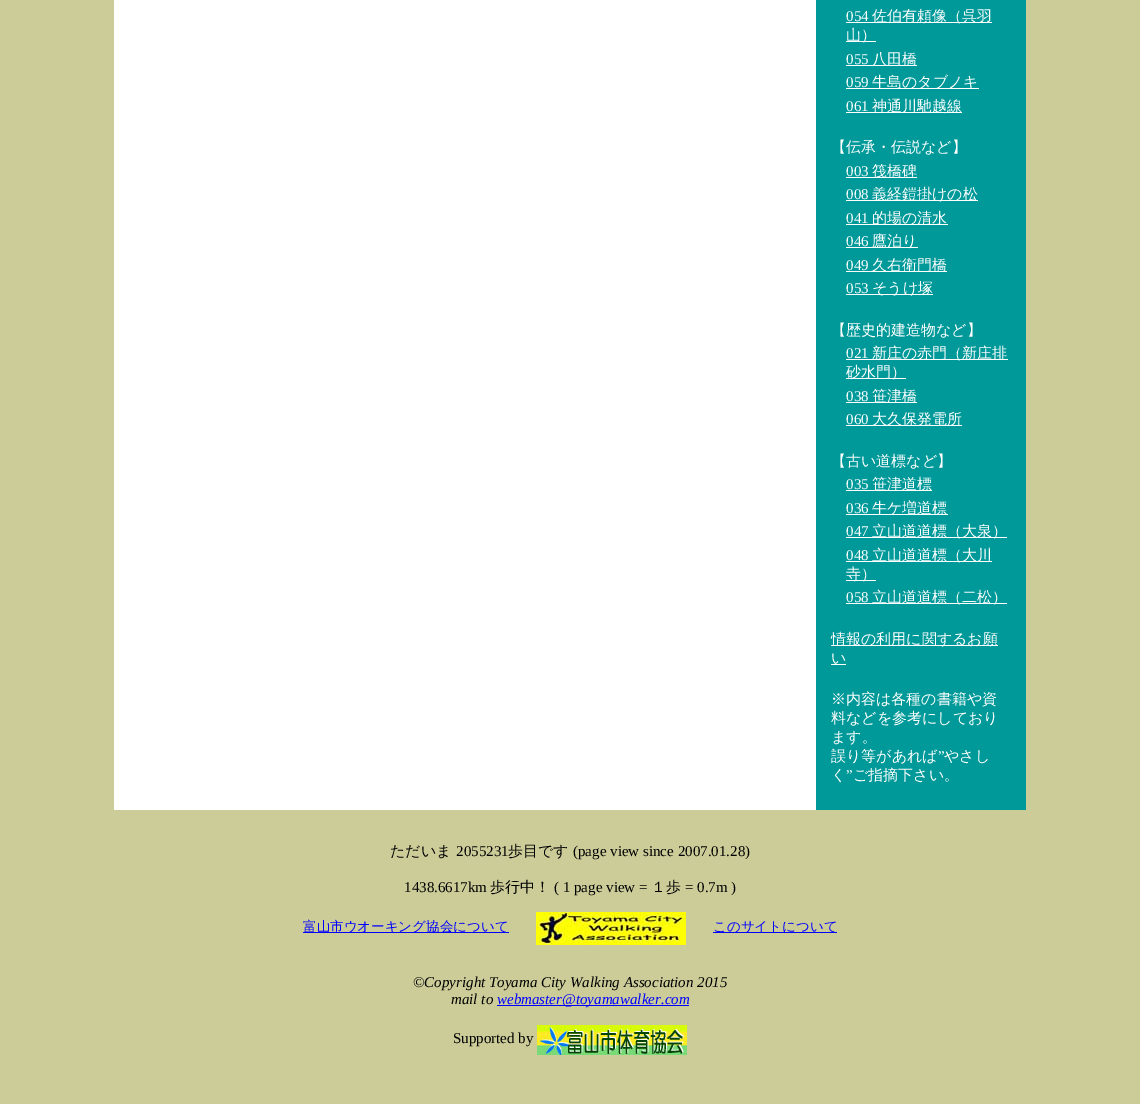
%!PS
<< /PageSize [1140 1104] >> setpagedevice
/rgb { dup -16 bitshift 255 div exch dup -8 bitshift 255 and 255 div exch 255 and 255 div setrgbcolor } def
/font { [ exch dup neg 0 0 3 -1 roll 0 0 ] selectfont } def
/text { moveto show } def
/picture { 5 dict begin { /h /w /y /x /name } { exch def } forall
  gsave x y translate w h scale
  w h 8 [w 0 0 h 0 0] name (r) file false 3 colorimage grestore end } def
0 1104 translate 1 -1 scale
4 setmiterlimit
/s1 { /LiberationSerif-Regular 15 font 16#FFFFFF rgb } def
/s2 { /WenQuanYiZenHei-Medium 15 font 16#FFFFFF rgb } def
/s3 { /WenQuanYiZenHei-Medium 15 font 16#000000 rgb } def
/s4 { /LiberationSerif-Regular 15 font 16#000000 rgb } def
/s5 { /WenQuanYiZenHei-Medium 13.5 font 16#0000FF rgb } def
/s6 { /LiberationSerif-Italic 15 font 16#000000 rgb } def
/s7 { /LiberationSerif-Italic 15 font 16#0000FF rgb } def
16#CCCC99 rgb
0 0 1140 1104 rectfill
16#FFFFFF rgb
114 0 702 810 rectfill
16#009999 rgb
816 0 210 810 rectfill
s1
(054) 846 21 text
846 22 146 1 rectfill
s2
(佐伯有頼像（呉羽) 872 21 text
846 41 30 1 rectfill
(山）) 846 40 text
s1
(055) 846 64 text
846 65 71 1 rectfill
s2
(八田橋) 872 64 text
s1
(059) 846 87 text
846 88 133 1 rectfill
s2
(牛島のタブノキ) 872 87 text
s1
(061) 846 111 text
846 112 116 1 rectfill
s2
(神通川馳越線) 872 111 text
(【伝承・伝説など】) 831 152 text
s1
(003) 846 176 text
846 177 71 1 rectfill
s2
(筏橋碑) 872 176 text
s1
(008) 846 199 text
846 200 132 1 rectfill
s2
(義経鎧掛けの松) 872 199 text
s1
(041) 846 223 text
846 224 102 1 rectfill
s2
(的場の清水) 872 223 text
s1
(046) 846 246 text
846 247 72 1 rectfill
s2
(鷹泊り) 872 246 text
s1
(049) 846 270 text
846 271 101 1 rectfill
s2
(久右衛門橋) 872 270 text
s1
(053) 846 293 text
846 294 87 1 rectfill
s2
(そうけ塚) 872 293 text
(【歴史的建造物など】) 831 335 text
s1
(021) 846 358 text
846 359 162 1 rectfill
s2
(新庄の赤門（新庄排) 872 358 text
846 378 60 1 rectfill
(砂水門）) 846 377 text
s1
(038) 846 401 text
846 402 71 1 rectfill
s2
(笹津橋) 872 401 text
s1
(060) 846 424 text
846 425 116 1 rectfill
s2
(大久保発電所) 872 424 text
(【古い道標など】) 831 466 text
s1
(035) 846 489 text
846 490 86 1 rectfill
s2
(笹津道標) 872 489 text
s1
(036) 846 513 text
846 514 102 1 rectfill
s2
(牛ケ増道標) 872 513 text
s1
(047) 846 536 text
846 537 161 1 rectfill
s2
(立山道道標（大泉）) 872 536 text
s1
(048) 846 560 text
846 561 146 1 rectfill
s2
(立山道道標（大川) 872 560 text
846 580 30 1 rectfill
(寺）) 846 579 text
s1
(058) 846 602 text
846 603 161 1 rectfill
s2
(立山道道標（二松）) 872 602 text
831 645 167 1 rectfill
(情報の利用に関するお願) 831 644 text
(い) 831 663 text
831 664 15 1 rectfill
(※内容は各種の書籍や資) 831 704 text
(料などを参考にしており) 831 723 text
(ます。) 831 742 text
(誤り等があれば) 831 761 text
s1
(”) 938 761 text
s2
(やさし) 944 761 text
(く) 831 780 text
s1
(”) 846 780 text
s2
(ご指摘下さい。) 853 780 text
s3
(ただいま) 390 856 text
s4
(2055231) 456 856 text
s3
(歩目です) 508 856 text
s4
(\(page view since 2007.01.28\)) 573 856 text
(1438.6617km) 404 892 text
s3
(歩行中！) 490 892 text
s4
(\( 1 page view =) 554 892 text
s3
(１歩) 651 892 text
s4
(= 0.7m \)) 685 892 text
16#0000FF rgb
303 932 206 1 rectfill
s5
(富山市ウオーキング協会について) 303 931 text
(pic1.raw) 536 912 150 33 picture
713 932 124 1 rectfill
(このサイトについて) 713 931 text
s6
(©Copyright Toyama City Walking Association 2015) 413 987 text
(mail to) 451 1004 text
16#0000FF rgb
497 1005 192 1 rectfill
(webmaster@toyamawalker.com) 497 1004 text
s4
(Supported by) 453 1043 text
(pic2.raw) 537 1025 150 30 picture
showpage
